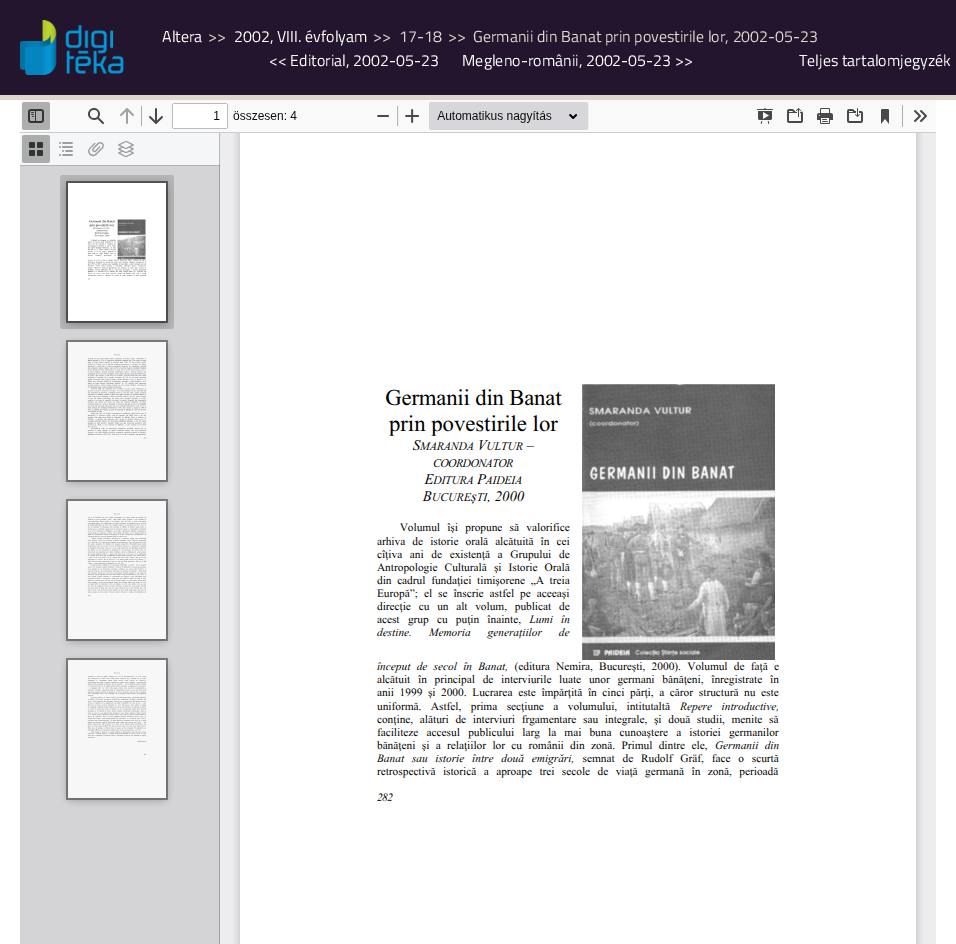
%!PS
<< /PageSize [956 944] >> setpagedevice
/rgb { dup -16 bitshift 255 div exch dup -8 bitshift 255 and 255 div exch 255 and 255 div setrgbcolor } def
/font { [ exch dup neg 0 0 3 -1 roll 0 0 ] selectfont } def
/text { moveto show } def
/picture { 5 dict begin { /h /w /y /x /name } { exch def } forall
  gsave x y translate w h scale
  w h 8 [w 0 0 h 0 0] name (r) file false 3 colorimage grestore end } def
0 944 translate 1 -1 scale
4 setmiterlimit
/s1 { /TitilliumWeb-Regular 16 font 16#FFFFFF rgb } def
/s2 { /TitilliumWeb-Regular 16 font 16#DBD7CB rgb } def
16#FFFFFF rgb
0 0 956 944 rectfill
16#23152E rgb
0 0 956 95 rectfill
16#DBD7CB rgb
0 95 956 5 rectfill
(pic1.raw) 20 20 104 55 picture
s1
(Altera) 162 42 text
s2
(>>) 208 42 text
s1
(2002, VIII. évfolyam) 234 42 text
s2
(>>) 373 42 text
(17-18) 399 42 text
(>>) 448 42 text
(Germanii din Banat prin povestirile lor, 2002-05-23) 473 42 text
s1
(<< Editorial, 2002-05-23) 269 66 text
(Megleno-românii, 2002-05-23 >>) 462 66 text
(Teljes tartalomjegyzék) 799 66 text
(pic2.raw) 20 100 916 844 picture
showpage
